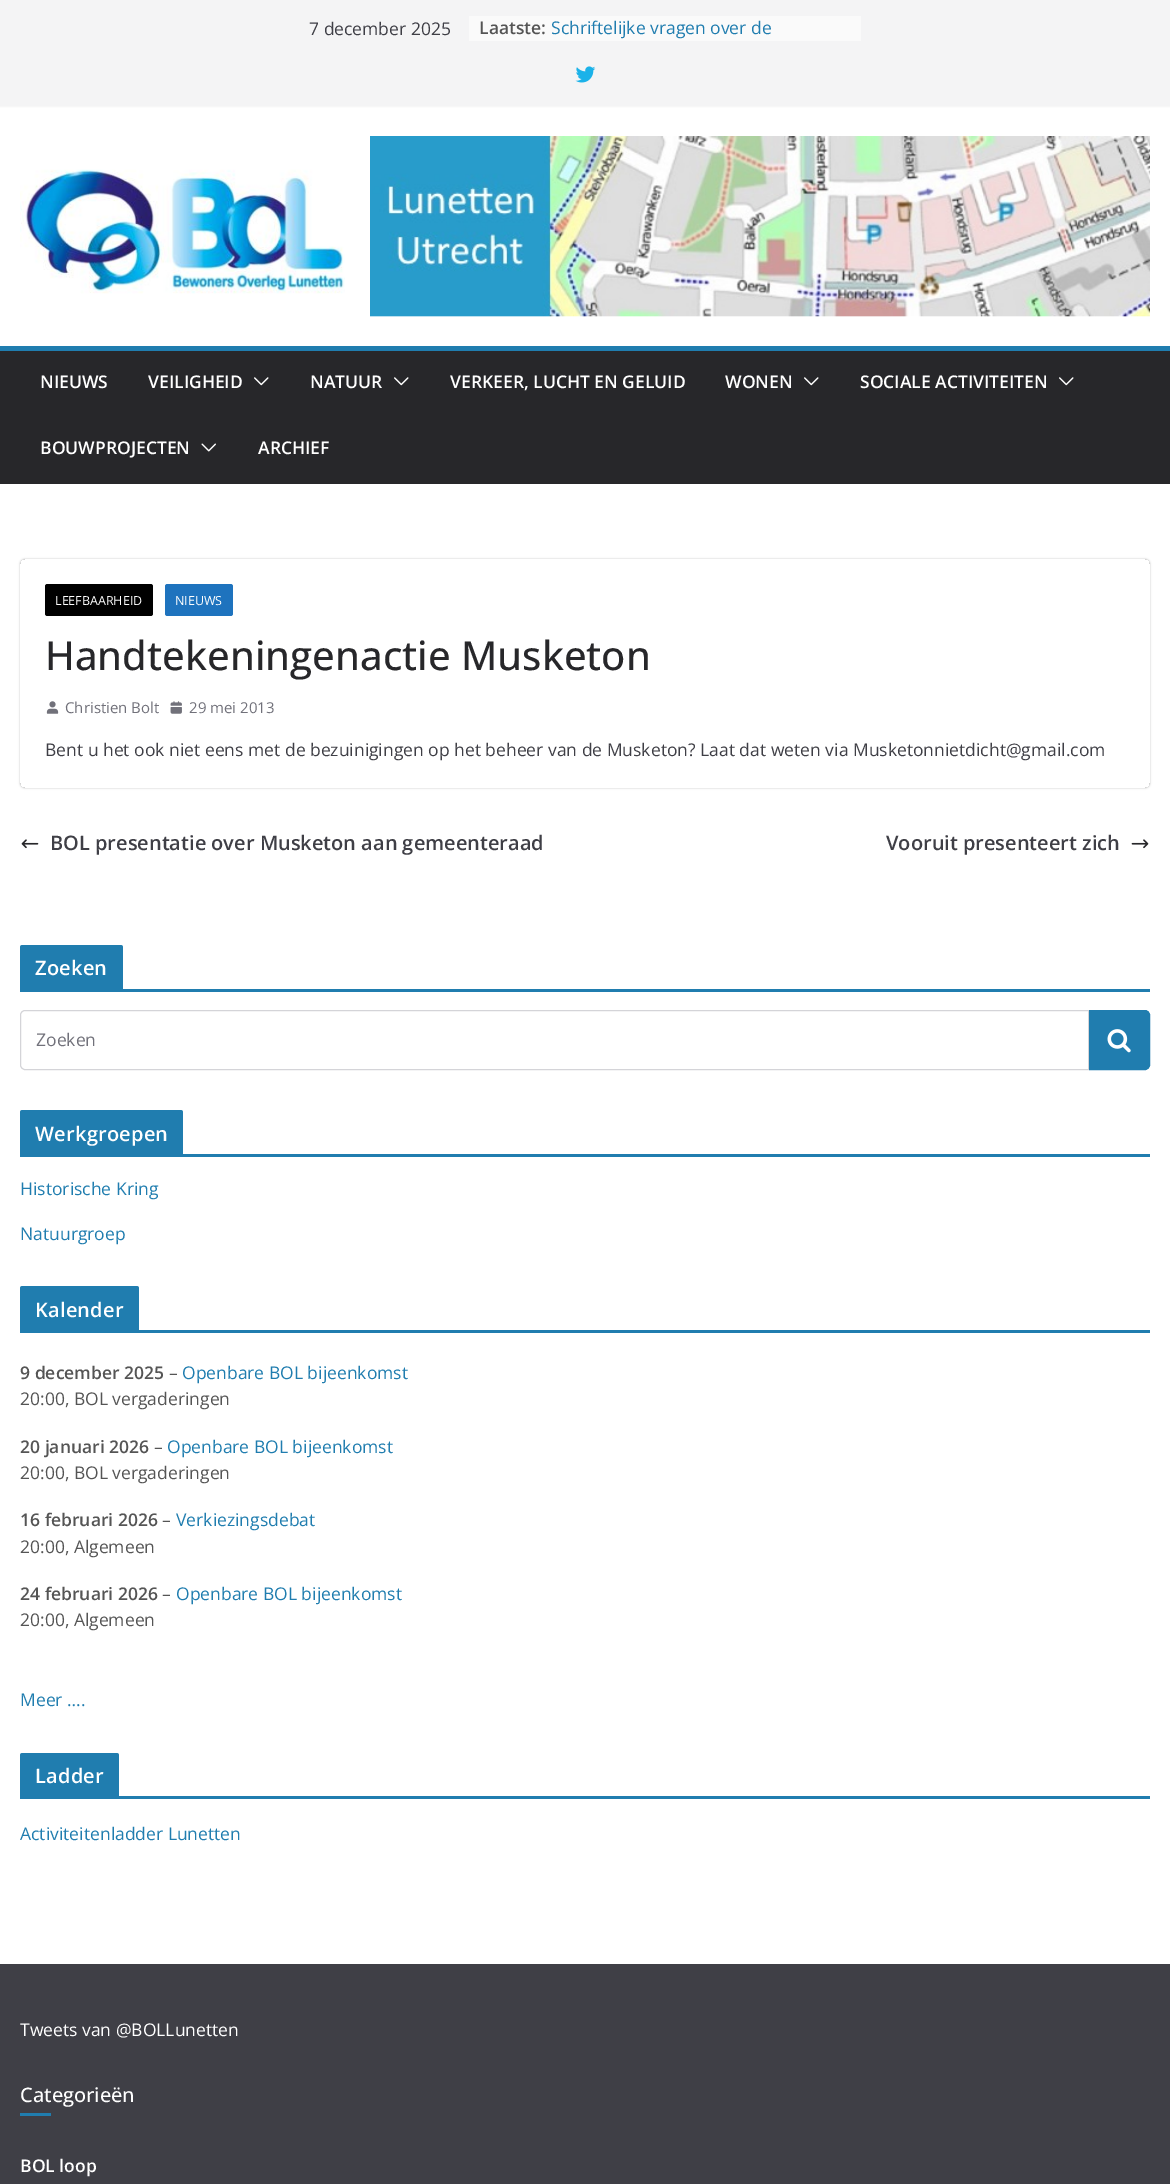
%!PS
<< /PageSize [1170 2184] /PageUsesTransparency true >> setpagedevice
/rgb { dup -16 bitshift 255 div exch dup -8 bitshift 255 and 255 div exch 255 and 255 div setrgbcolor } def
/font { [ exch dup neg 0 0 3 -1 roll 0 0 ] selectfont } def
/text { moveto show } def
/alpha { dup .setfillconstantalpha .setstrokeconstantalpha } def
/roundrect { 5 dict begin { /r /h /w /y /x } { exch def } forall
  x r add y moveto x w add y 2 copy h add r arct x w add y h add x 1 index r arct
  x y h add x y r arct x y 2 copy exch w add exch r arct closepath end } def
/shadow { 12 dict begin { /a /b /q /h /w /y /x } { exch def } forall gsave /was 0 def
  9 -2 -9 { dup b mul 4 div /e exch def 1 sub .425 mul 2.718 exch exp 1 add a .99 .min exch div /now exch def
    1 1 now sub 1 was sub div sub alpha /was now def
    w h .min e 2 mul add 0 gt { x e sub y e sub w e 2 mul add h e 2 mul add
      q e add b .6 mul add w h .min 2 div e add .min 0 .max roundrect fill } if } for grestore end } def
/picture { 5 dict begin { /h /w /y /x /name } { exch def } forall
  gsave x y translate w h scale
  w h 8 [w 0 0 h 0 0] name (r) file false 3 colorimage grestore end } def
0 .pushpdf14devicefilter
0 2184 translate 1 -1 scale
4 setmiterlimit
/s1 { /OpenSans-Regular 17.5 font 16#3F3F46 rgb } def
/s2 { /OpenSans-SemiBold 17.5 font 16#555555 rgb } def
/s3 { /OpenSans-Regular 17.5 font 16#207DAF rgb } def
/s4 { /OpenSans-SemiBold 17.5 font 16#FFFFFF rgb } def
/s5 { /OpenSans-Regular 12.5 font 16#FFFFFF rgb } def
/s6 { /OpenSans-Medium 40 font 16#27272A rgb } def
/s7 { /OpenSans-Regular 15 font 16#71717A rgb } def
/s8 { /OpenSans-SemiBold 20 font 16#3F3F46 rgb } def
/s9 { /OpenSans-Regular 17.5 font 16#71717A rgb } def
/s10 { /OpenSans-Regular 17.5 font 16#555555 rgb } def
/s11 { /OpenSans-Regular 17.5 font 16#FFFFFF rgb } def
/s12 { /OpenSans-Medium 20 font 16#FFFFFF rgb } def
16#FFFFFF rgb
0 0 1170 2184 rectfill
16#000000 rgb
0 0 1170 106 0 1 0.1 shadow
16#F4F4F5 rgb
0 0 1170 106 rectfill
s1
(7 december 2025) 309 35 text
16#FAFAFA rgb
469 16 392 25 rectfill
s2
(Laatste:) 479 34 text
s3
(Schriftelijke vragen over de) 551 34 text
(pic1.raw) 575 66 21 17 picture
(pic2.raw) 20 169 325 125 picture
(pic3.raw) 370 136 780 181 picture
16#27272A rgb
0 351 1170 133 rectfill
16#207DAF rgb
0 346 1170 5 rectfill
s4
(NIEUWS) 40 388 text
(VEILIGHEID) 148 388 text
(pic4.raw) 254 377 15 9 picture
(NATUUR) 310 388 text
(pic4.raw) 394 377 15 9 picture
(VERKEER, LUCHT EN GELUID) 450 388 text
(WONEN) 725 388 text
(pic4.raw) 804 377 15 9 picture
(SOCIALE ACTIVITEITEN) 860 388 text
(pic4.raw) 1059 377 15 9 picture
(BOUWPROJECTEN) 40 454 text
(pic5.raw) 201 443 15 9 picture
(ARCHIEF) 258 454 text
gsave
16 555 moveto 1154 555 lineto 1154 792 lineto 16 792 lineto closepath 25 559 moveto 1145 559 lineto 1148 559 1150 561 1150 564 curveto 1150 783 lineto 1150 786 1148 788 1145 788 curveto 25 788 lineto 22 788 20 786 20 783 curveto 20 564 lineto 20 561 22 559 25 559 curveto closepath eoclip newpath
16#000000 rgb
20 559 1130 229 5 1 0.24 shadow
grestore
16#000000 rgb
45 584 108 32 2.5 roundrect fill
s5
(LEEFBAARHEID) 55 605 text
16#1E73BE rgb
165 584 68 32 2.5 roundrect fill
s5
(NIEUWS) 175 605 text
s6
(Handtekeningenactie Musketon) 45 670 text
(pic6.raw) 46 701 13 13 picture
s7
(Christien Bolt) 65 713 text
(pic7.raw) 170 701 12 13 picture
(29 mei 2013) 189 713 text
s1
(Bent u het ook niet eens met de bezuinigingen op het beheer van de Musketon? Laat dat weten via Musketonnietdicht@gmail.com) 45 756 text
(pic8.raw) 21 839 18 10 picture
s8
(BOL presentatie over Musketon aan gemeenteraad) 50 850 text
(Vooruit presenteert zich) 886 850 text
(pic9.raw) 1131 839 18 10 picture
16#207DAF rgb
20 989 1130 3 rectfill
22.5 945 moveto 120.5 945 lineto 122 945 123 946 123 947.5 curveto 123 989 lineto 20 989 lineto 20 947.5 lineto 20 946 21 945 22.5 945 curveto closepath fill
16#FFFFFF rgb
35 975 moveto 0.25 0 (Zoeken) ashow
16#D4D4D8 rgb
25 1010.5 moveto 1088.5 1010.5 lineto 1088.5 1069.5 lineto 25 1069.5 lineto 22.5 1069.5 20.5 1067.5 20.5 1065 curveto 20.5 1015 lineto 20.5 1012.5 22.5 1010.5 25 1010.5 curveto closepath stroke
s9
(Zoeken) 36 1046 text
16#207DAF rgb
1089.5 1010.5 moveto 1145 1010.5 lineto 1147.5 1010.5 1149.5 1012.5 1149.5 1015 curveto 1149.5 1065 lineto 1149.5 1067.5 1147.5 1069.5 1145 1069.5 curveto 1089.5 1069.5 lineto closepath gsave fill grestore
stroke
(pic10.raw) 1107 1029 24 24 picture
20 1154 1130 3 rectfill
22.5 1110 moveto 180.5 1110 lineto 182 1110 183 1111 183 1112.5 curveto 183 1154 lineto 20 1154 lineto 20 1112.5 lineto 20 1111 21 1110 22.5 1110 curveto closepath fill
/OpenSans-SemiBold 20 font
16#FFFFFF rgb
35 1141 moveto 0.25 0 (Werkgroepen) ashow
s3
(Historische Kring) 20 1195 text
(Natuurgroep) 20 1240 text
20 1330 1130 3 rectfill
22.5 1286 moveto 136.5 1286 lineto 138 1286 139 1287 139 1288.5 curveto 139 1330 lineto 20 1330 lineto 20 1288.5 lineto 20 1287 21 1286 22.5 1286 curveto closepath fill
/OpenSans-SemiBold 20 font
16#FFFFFF rgb
35 1317 moveto 0.25 0 (Kalender) ashow
s2
(9 december 2025) 20 1379 text
s10
(–) 169 1379 text
s3
(Openbare BOL bijeenkomst) 182 1379 text
s10
(20:00, BOL vergaderingen) 20 1405 text
s2
(20 januari 2026) 20 1453 text
s10
(–) 154 1453 text
s3
(Openbare BOL bijeenkomst) 167 1453 text
s10
(20:00, BOL vergaderingen) 20 1479 text
s2
(16 februari 2026) 20 1526 text
s10
(–) 162 1526 text
s3
(Verkiezingsdebat) 176 1526 text
s10
(20:00, Algemeen) 20 1553 text
s2
(24 februari 2026) 20 1600 text
s10
(–) 162 1600 text
s3
(Openbare BOL bijeenkomst) 176 1600 text
s10
(20:00, Algemeen) 20 1626 text
s3
(Meer ….) 20 1706 text
20 1796 1130 3 rectfill
22.5 1753 moveto 116.5 1753 lineto 118 1753 119 1754 119 1755.5 curveto 119 1796 lineto 20 1796 lineto 20 1755.5 lineto 20 1754 21 1753 22.5 1753 curveto closepath fill
/OpenSans-SemiBold 20 font
16#FFFFFF rgb
35 1783 moveto 0.25 0 (Ladder) ashow
s3
(Activiteitenladder Lunetten) 20 1840 text
16#3F3F46 rgb
0 1964 1170 220 rectfill
s11
(Tweets van @BOLLunetten) 20 2036 text
s12
(Categorieën) 20 2102 text
16#207DAF rgb
20 2113 31 3 rectfill
s4
(BOL loop) 20 2172 text
.poppdf14devicefilter showpage
